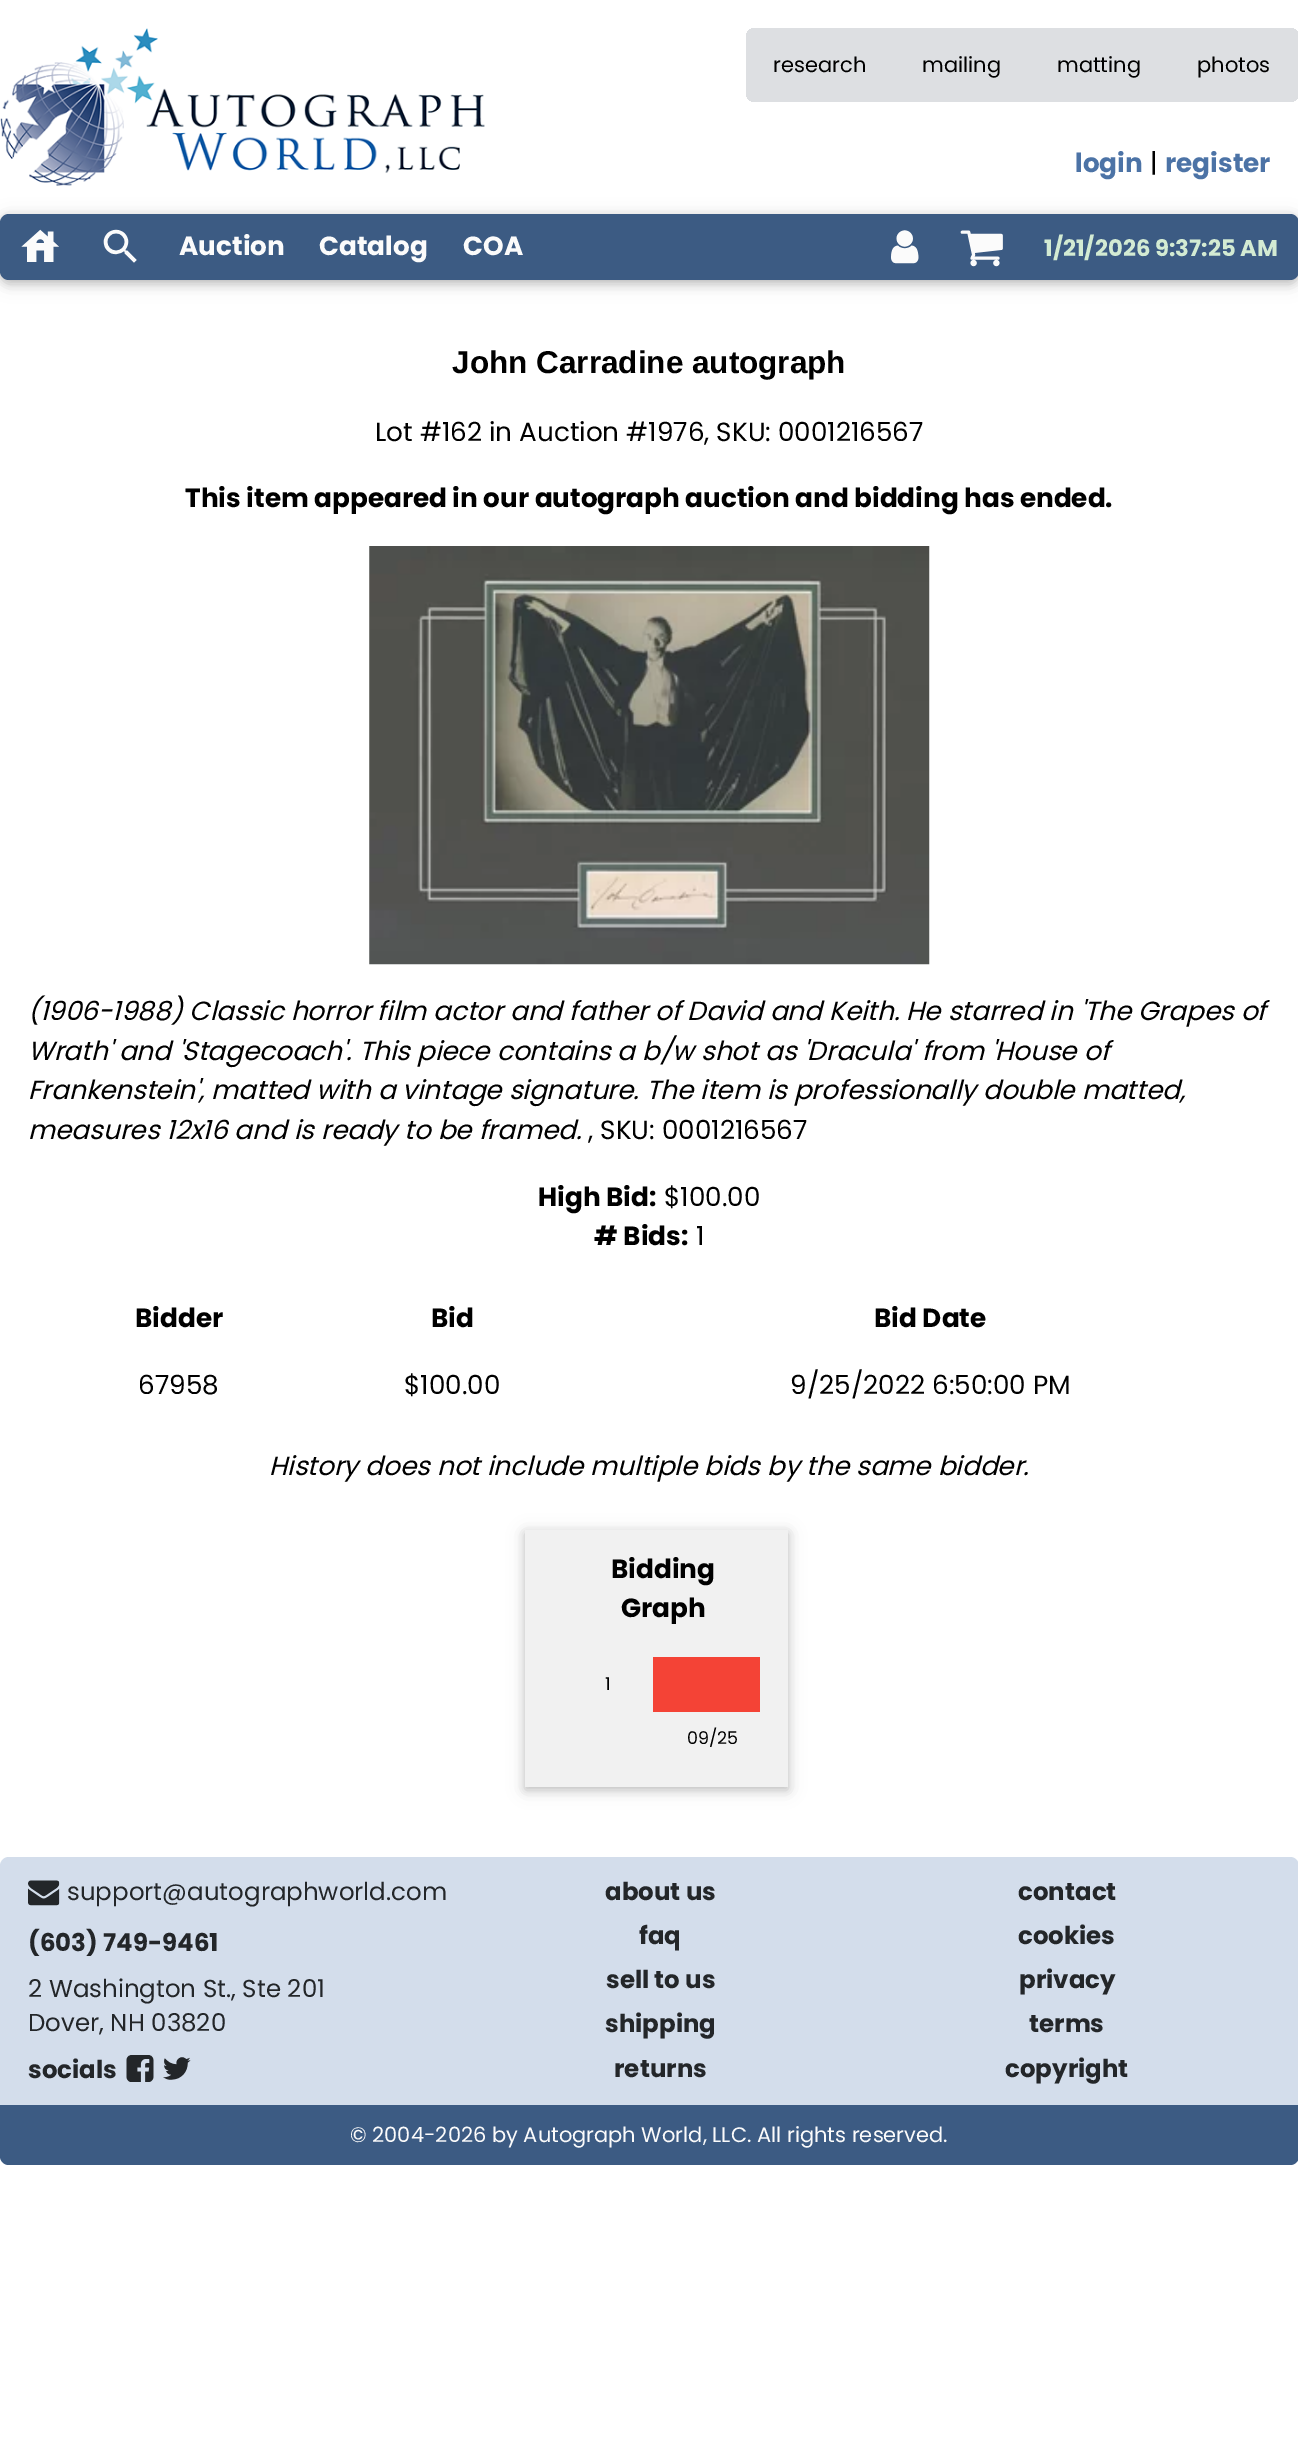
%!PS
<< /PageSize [1298 2464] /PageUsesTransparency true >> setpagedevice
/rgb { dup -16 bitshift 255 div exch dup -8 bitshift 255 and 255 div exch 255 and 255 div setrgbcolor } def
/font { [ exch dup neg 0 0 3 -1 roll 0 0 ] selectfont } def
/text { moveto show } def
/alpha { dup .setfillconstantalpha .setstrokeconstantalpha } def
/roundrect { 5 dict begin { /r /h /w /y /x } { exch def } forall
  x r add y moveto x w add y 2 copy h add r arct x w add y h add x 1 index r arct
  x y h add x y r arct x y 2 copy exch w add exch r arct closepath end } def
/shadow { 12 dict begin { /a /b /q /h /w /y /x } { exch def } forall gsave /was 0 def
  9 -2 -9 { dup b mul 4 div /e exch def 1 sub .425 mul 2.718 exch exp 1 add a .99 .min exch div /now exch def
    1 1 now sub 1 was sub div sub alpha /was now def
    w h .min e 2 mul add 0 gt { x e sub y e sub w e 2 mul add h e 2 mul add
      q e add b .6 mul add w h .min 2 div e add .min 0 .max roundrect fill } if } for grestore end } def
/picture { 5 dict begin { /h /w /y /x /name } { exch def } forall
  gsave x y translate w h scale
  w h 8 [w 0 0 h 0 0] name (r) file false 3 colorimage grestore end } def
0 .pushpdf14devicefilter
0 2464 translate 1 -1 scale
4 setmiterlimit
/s1 { /Poppins-Regular 21 font 16#000000 rgb } def
/s2 { /Poppins-Bold 26.25 font 16#4C73A6 rgb } def
/s3 { /Poppins-Regular 26.25 font 16#000000 rgb } def
/s4 { /Poppins-Bold 26.25 font 16#FBFBFB rgb } def
/s5 { /Poppins-Bold 22.75 font 16#D3EBD3 rgb } def
/s6 { /LiberationSans-Bold 31.5 font 16#000000 rgb } def
/s7 { /Poppins-Bold 26.25 font 16#000000 rgb } def
/s8 { /Poppins-Italic 26.25 font 16#000000 rgb } def
/s9 { /Poppins-Regular 17.5 font 16#000000 rgb } def
/s10 { /Poppins-Regular 24.5 font 16#232629 rgb } def
/s11 { /Poppins-Bold 24.5 font 16#232629 rgb } def
/s12 { /Poppins-Regular 21 font 16#FBFBFB rgb } def
16#FFFFFF rgb
0 0 1298 2464 rectfill
(pic1.raw) 0 28 485 158 picture
16#DDDFE2 rgb
755 28 moveto 894 28 lineto 894 102 lineto 755 102 lineto 750 102 746 98 746 93 curveto 746 37 lineto 746 32 750 28 755 28 curveto closepath fill
gsave
746 28 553 74 9 roundrect clip newpath
746 28 148 7 rectfill
746 95 148 7 rectfill
grestore
s1
(research) 773 72 text
16#DDDFE2 rgb
894 28 275 74 rectfill
s1
(mailing) 922 72 text
(matting) 1057 72 text
16#DDDFE2 rgb
1169 28 moveto 1290 28 lineto 1295 28 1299 32 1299 37 curveto 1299 93 lineto 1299 98 1295 102 1290 102 curveto 1169 102 lineto closepath fill
gsave
746 28 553 74 9 roundrect clip newpath
1169 28 129 7 rectfill
1169 95 129 7 rectfill
grestore
s1
(photos) 1197 72 text
s2
(login) 1075 172 text
s3
(|) 1150 172 text
s2
(register) 1165 172 text
16#000000 rgb
0 217 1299 67 9 9 0.12 shadow
0 217 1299 67 9 4.5 0.16 shadow
16#3C5B83 rgb
0 214 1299 66 9 roundrect fill
(pic2.raw) 21 229 38 33 picture
(pic3.raw) 103 229 34 34 picture
s4
(Auction) 179 255 text
(Catalog) 319 255 text
(COA) 463 255 text
(pic4.raw) 891 230 28 34 picture
(pic5.raw) 960 230 43 37 picture
s5
(1/21/2026 9:37:25 AM) 1044 256 text
s6
(John Carradine autograph) 452 373 text
s3
(Lot #162 in Auction #1976, SKU: 0001216567) 375 441 text
s7
(This item appeared in our autograph auction and bidding has ended.) 185 507 text
(pic6.raw) 369 546 561 419 picture
s8
(\(1906-1988\) Classic horror film actor and father of David and Keith. He starred in 'The Grapes of) 28 1020 text
(Wrath' and 'Stagecoach'. This piece contains a b/w shot as 'Dracula' from 'House of) 28 1060 text
(Frankenstein', matted with a vintage signature. The item is professionally double matted,) 28 1099 text
(measures 12x16 and is ready to be framed.) 28 1139 text
s3
(, SKU: 0001216567) 588 1139 text
s7
(High Bid:) 538 1206 text
s3
($100.00) 664 1206 text
s7
(# Bids:) 594 1245 text
s3
(1) 696 1245 text
s7
(Bidder) 135 1327 text
(Bid) 431 1327 text
(Bid Date) 874 1327 text
s3
(67958) 138 1394 text
($100.00) 404 1394 text
(9/25/2022 6:50:00 PM) 790 1394 text
s8
(History does not include multiple bids by the same bidder.) 269 1475 text
525 1533 263 257 0 9 0.12 shadow
525 1533 263 257 0 4.5 0.16 shadow
16#F1F1F1 rgb
525 1530 263 257 rectfill
s7
(Bidding) 611 1578 text
(Graph) 621 1617 text
s9
(1) 605 1690 text
16#F44336 rgb
653 1657 107 55 rectfill
s9
(09/25) 687 1744 text
16#D3DDEB rgb
0 1857 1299 308 9 roundrect fill
(pic7.raw) 28 1880 32 26 picture
s10
(support@autographworld.com) 67 1900 text
s11
(\(603\) 749-9461) 28 1951 text
s10
(2 Washington St., Ste 201) 28 1997 text
(Dover, NH 03820) 28 2031 text
s11
(socials) 28 2078 text
(pic8.raw) 126 2055 28 27 picture
(pic9.raw) 163 2057 28 23 picture
(about us) 605 1900 text
(faq) 639 1944 text
(sell to us) 606 1988 text
(shipping) 605 2032 text
(returns) 614 2077 text
(contact) 1018 1900 text
(cookies) 1018 1944 text
(privacy) 1019 1988 text
(terms) 1029 2032 text
(copyright) 1005 2077 text
16#3C5B83 rgb
0 2105 moveto 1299 2105 lineto 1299 2156 lineto 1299 2161 1295 2165 1290 2165 curveto 9 2165 lineto 4 2165 0 2161 0 2156 curveto closepath fill
s12
(© 2004-2026 by Autograph World, LLC. All rights reserved.) 350 2142 text
.poppdf14devicefilter showpage
